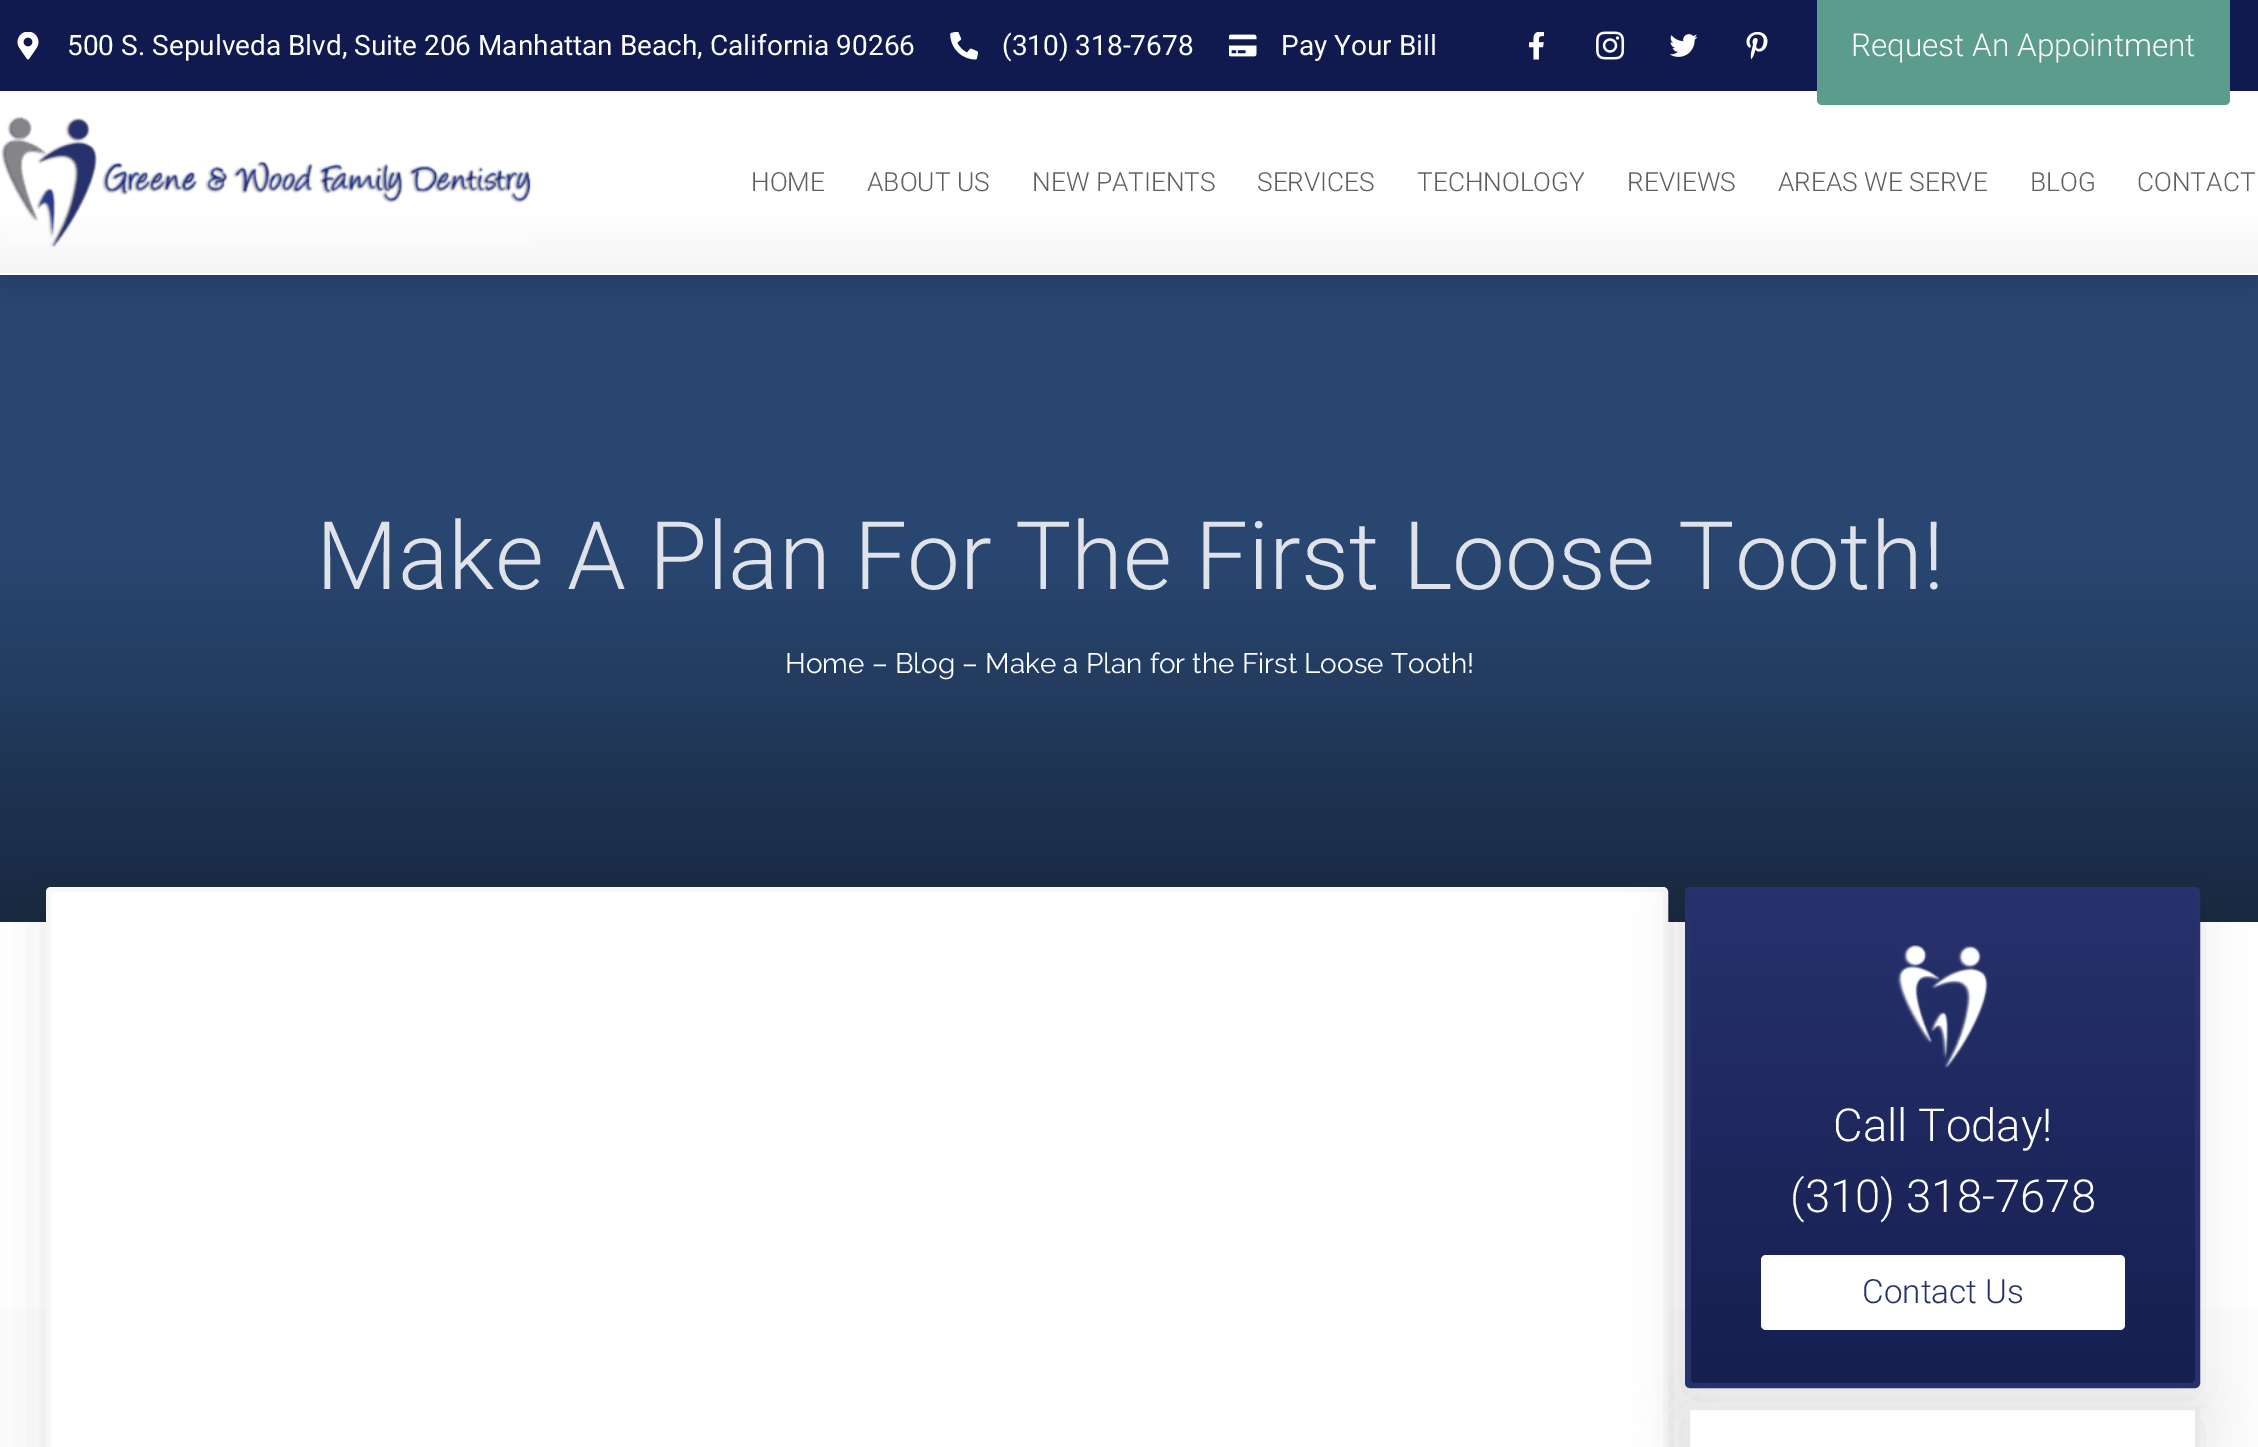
%!PS
<< /PageSize [2258 1447] /PageUsesTransparency true >> setpagedevice
/rgb { dup -16 bitshift 255 div exch dup -8 bitshift 255 and 255 div exch 255 and 255 div setrgbcolor } def
/font { [ exch dup neg 0 0 3 -1 roll 0 0 ] selectfont } def
/text { moveto show } def
/alpha { dup .setfillconstantalpha .setstrokeconstantalpha } def
/roundrect { 5 dict begin { /r /h /w /y /x } { exch def } forall
  x r add y moveto x w add y 2 copy h add r arct x w add y h add x 1 index r arct
  x y h add x y r arct x y 2 copy exch w add exch r arct closepath end } def
/shadow { 12 dict begin { /a /b /q /h /w /y /x } { exch def } forall gsave /was 0 def
  9 -2 -9 { dup b mul 4 div /e exch def 1 sub .425 mul 2.718 exch exp 1 add a .99 .min exch div /now exch def
    1 1 now sub 1 was sub div sub alpha /was now def
    w h .min e 2 mul add 0 gt { x e sub y e sub w e 2 mul add h e 2 mul add
      q e add b .6 mul add w h .min 2 div e add .min 0 .max roundrect fill } if } for grestore end } def
/picture { 5 dict begin { /h /w /y /x /name } { exch def } forall
  gsave x y translate w h scale
  w h 8 [w 0 0 h 0 0] name (r) file false 3 colorimage grestore end } def
0 .pushpdf14devicefilter
0 1447 translate 1 -1 scale
4 setmiterlimit
/s1 { /Roboto-Regular 28 font 16#FFFFFF rgb } def
/s2 { /Roboto-Light 31.5 font 16#FFFFFF rgb } def
/s3 { /Roboto-Light 26.25 font 16#5E5E5E rgb } def
/s4 { /Roboto-Light 94.5 font 16#DFE3E9 rgb } def
/s5 { /Raleway-Regular 28 font 16#FFFFFF rgb } def
/s6 { /Roboto-Light 45.5 font 16#FFFFFF rgb } def
/s7 { /Roboto-Light 33.25 font 16#27316C rgb } def
16#FFFFFF rgb
0 0 2258 1447 rectfill
gsave 0 275 moveto 2258 275 lineto 2258 922 lineto 0 922 lineto closepath clip newpath
<< /ShadingType 2 /ColorSpace /DeviceRGB /Coords [1130 275 1130 922] /Extend [true true] /Function << /FunctionType 3 /Domain [0 1] /Functions [<< /FunctionType 2 /Domain [0 1] /C0 [0.161 0.275 0.439] /C1 [0.161 0.275 0.439] /N 1 >> << /FunctionType 2 /Domain [0 1] /C0 [0.161 0.275 0.439] /C1 [0.094 0.157 0.251] /N 1 >>] /Bounds [0.44] /Encode [0 1 0 1] >> >> shfill grestore
16#000000 rgb
0 91 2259 184 0 19 0.18 shadow
16#111A4F rgb
0 0 2258 91 rectfill
(pic1.raw) 17 32 22 28 picture
s1
(500 S. Sepulveda Blvd, Suite 206 Manhattan Beach, California 90266) 67 55 text
(pic2.raw) 950 32 28 28 picture
(\(310\) 318-7678) 1002 55 text
(pic3.raw) 1229 34 28 23 picture
(Pay Your Bill) 1281 55 text
(pic4.raw) 1529 32 15 28 picture
(pic5.raw) 1596 31 29 29 picture
(pic6.raw) 1670 34 28 23 picture
(pic7.raw) 1746 32 22 28 picture
gsave 0 91 moveto 2258 91 lineto 2258 273 lineto 0 273 lineto closepath clip newpath
<< /ShadingType 2 /ColorSpace /DeviceRGB /Coords [1130 91 1130 273] /Extend [true true] /Function << /FunctionType 3 /Domain [0 1] /Functions [<< /FunctionType 2 /Domain [0 1] /C0 [1 1 1] /C1 [1 1 1] /N 1 >> << /FunctionType 2 /Domain [0 1] /C0 [1 1 1] /C1 [0.961 0.961 0.961] /N 1 >>] /Bounds [0.65] /Encode [0 1 0 1] >> >> shfill grestore
16#5C9C8C rgb
1817 -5 413 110 5 roundrect fill
s2
(Request An Appointment) 1851 56 text
0 273 2258 2 rectfill
(pic8.raw) 1 117 530 130 picture
s3
(HOME) 751 191 text
(ABOUT US) 867 191 text
(NEW PATIENTS) 1032 191 text
(SERVICES) 1257 191 text
(TECHNOLOGY) 1417 191 text
(REVIEWS) 1627 191 text
(AREAS WE SERVE) 1778 191 text
(BLOG) 2030 191 text
(CONTACT) 2137 191 text
s4
(Make A Plan For The First Loose Tooth!) 316 589 text
s5
(Home – Blog – Make a Plan for the First Loose Tooth!) 785 673 text
gsave 0 1309 moveto 2258 1309 lineto 2258 1447 lineto 0 1447 lineto closepath clip newpath
<< /ShadingType 2 /ColorSpace /DeviceRGB /Coords [1130 922 1130 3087] /Extend [true true] /Function << /FunctionType 2 /Domain [0 1] /C0 [1 1 1] /C1 [0.945 0.945 0.945] /N 1 >> >> shfill grestore
16#000000 rgb
46 896 1622 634 5 26 0.09 shadow
16#FFFFFF rgb
48.5 889.5 1617 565 2.5 roundrect gsave fill grestore
16#F7F7F7 rgb
5 setlinewidth
stroke
16#000000 rgb
1685 896 515 501 5 26 0.09 shadow
16#27316C rgb
1687.5 889.5 510 496 2.5 roundrect gsave fill grestore
stroke
gsave 1691 893 504 490 5 roundrect clip newpath
<< /ShadingType 2 /ColorSpace /DeviceRGB /Coords [1943 893 1943 1383] /Extend [true true] /Function << /FunctionType 2 /Domain [0 1] /C0 [0.153 0.192 0.424] /C1 [0.086 0.122 0.314] /N 1 >> >> shfill grestore
(pic9.raw) 1897 945 91 123 picture
s6
(Call Today!) 1833 1141 text
(\(310\) 318-7678) 1790 1212 text
1761 1255 364 75 5 roundrect fill
s7
(Contact Us) 1862 1303 text
16#000000 rgb
1685 1414 515 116 5 26 0.09 shadow
16#FFFFFF rgb
1687.5 1407.5 510 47 2.5 roundrect gsave fill grestore
16#E9E9E9 rgb
stroke
.poppdf14devicefilter showpage
